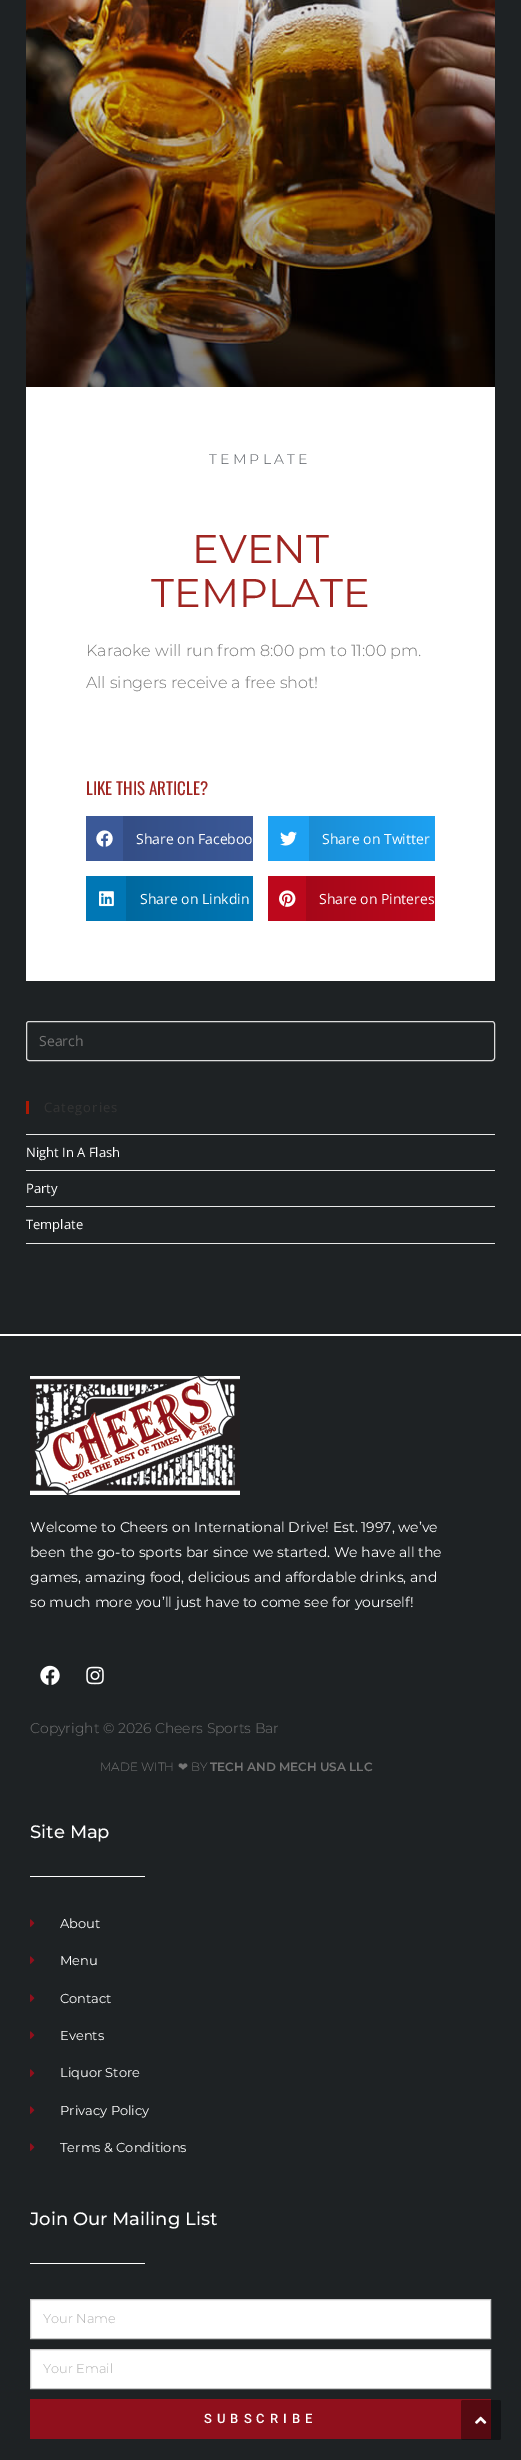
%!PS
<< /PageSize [521 2460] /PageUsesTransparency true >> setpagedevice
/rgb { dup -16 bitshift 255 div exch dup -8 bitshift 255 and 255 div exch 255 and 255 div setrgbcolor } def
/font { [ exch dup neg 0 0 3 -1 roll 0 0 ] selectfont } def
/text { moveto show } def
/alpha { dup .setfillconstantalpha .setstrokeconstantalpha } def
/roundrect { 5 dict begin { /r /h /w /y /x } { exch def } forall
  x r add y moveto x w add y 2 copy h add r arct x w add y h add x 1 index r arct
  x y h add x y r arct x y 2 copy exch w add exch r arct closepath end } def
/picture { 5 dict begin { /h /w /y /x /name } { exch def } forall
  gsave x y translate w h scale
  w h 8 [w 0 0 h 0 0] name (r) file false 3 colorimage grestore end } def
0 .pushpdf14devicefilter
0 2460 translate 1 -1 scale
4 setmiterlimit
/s1 { /Montserrat-Regular 40 font 16#A02521 rgb } def
/s2 { /Montserrat-Light 16 font 16#757575 rgb } def
/s3 { /Oswald-Regular 17 font 16#A02521 rgb } def
/s4 { /OpenSans-Regular 14 font 16#FFFFFF rgb } def
/s5 { /OpenSans-Regular 14 font 16#757575 rgb } def
/s6 { /OpenSans-Regular 13 font 16#FFFFFF rgb } def
/s7 { /Montserrat-Regular 14 font 16#FFFFFF rgb } def
/s8 { /Montserrat-Light 14 font 16#757575 rgb } def
/s9 { /Montserrat-Light 12 font 16#757575 rgb } def
/s10 { /DejaVuSans-Regular 12 font 16#757575 rgb } def
/s11 { /Montserrat-SemiBold 12 font 16#757575 rgb } def
/s12 { /Montserrat-Medium 18 font 16#FFFFFF rgb } def
/s13 { /Montserrat-Regular 13 font 16#FFFFFF rgb } def
/s14 { /Montserrat-Light 13 font 16#AFAFAF rgb } def
16#1E2224 rgb
0 0 521 2460 rectfill
(pic1.raw) 26 0 469 387 picture
16#FFFFFF rgb
26 387 469 594 rectfill
/Montserrat-Light 14 font
16#54595F rgb
209 464 moveto 3.25 0 (TEMPLATE) ashow
s1
(EVENT) 192 563 text
(TEMPLATE) 151 607 text
s2
(Karaoke will run from 8:00 pm to 11:00 pm.) 86 656 text
(All singers receive a free shot!) 86 688 text
s3
(LIKE THIS ARTICLE?) 86 795 text
16#3B5998 rgb
86 816 37 45 rectfill
(pic2.raw) 96 830 17 17 picture
gsave 123 816 moveto 253 816 lineto 253 861 lineto 123 861 lineto closepath clip newpath
<< /ShadingType 2 /ColorSpace /DeviceRGB /Coords [123 839 253 839] /Extend [true true] /Function << /FunctionType 2 /Domain [0 1] /C0 [0.204 0.306 0.525] /C1 [0.231 0.349 0.596] /N 1 >> >> shfill grestore
s4
(Share on Faceboo) 136 844 text
16#1DA1F2 rgb
268 816 41 45 rectfill
(pic3.raw) 280 831 17 15 picture
gsave 309 816 moveto 435 816 lineto 435 861 lineto 309 861 lineto closepath clip newpath
<< /ShadingType 2 /ColorSpace /DeviceRGB /Coords [309 839 435 839] /Extend [true true] /Function << /FunctionType 2 /Domain [0 1] /C0 [0.102 0.557 0.835] /C1 [0.114 0.631 0.949] /N 1 >> >> shfill grestore
s4
(Share on Twitter) 322 844 text
16#0077B5 rgb
86 876 40 45 rectfill
(pic4.raw) 99 891 15 16 picture
gsave 126 876 moveto 253 876 lineto 253 921 lineto 126 921 lineto closepath clip newpath
<< /ShadingType 2 /ColorSpace /DeviceRGB /Coords [126 899 253 899] /Extend [true true] /Function << /FunctionType 2 /Domain [0 1] /C0 [0 0.412 0.624] /C1 [0 0.467 0.71] /N 1 >> >> shfill grestore
s4
(Share on Linkdin) 140 904 text
16#BD081C rgb
268 876 38 45 rectfill
(pic5.raw) 279 890 17 17 picture
gsave 306 876 moveto 435 876 lineto 435 921 lineto 306 921 lineto closepath clip newpath
<< /ShadingType 2 /ColorSpace /DeviceRGB /Coords [306 899 435 899] /Extend [true true] /Function << /FunctionType 2 /Domain [0 1] /C0 [0.651 0.027 0.098] /C1 [0.741 0.031 0.11] /N 1 >> >> shfill grestore
s4
(Share on Pinteres) 319 904 text
16#DDDDDD rgb
26.5 1021.5 468 39 2.5 roundrect stroke
s5
(Search) 39 1046 text
16#AA1903 rgb
26 1101 3 13 rectfill
/OpenSans-Regular 13 font
16#333333 rgb
44 1112 moveto 1 0 (Categories) ashow
16#E9E9E9 rgb
26 1134 469 1 rectfill
26 1170 469 1 rectfill
s6
(Night In A Flash) 26 1157 text
16#E9E9E9 rgb
26 1206 469 1 rectfill
s6
(Party) 26 1193 text
16#E9E9E9 rgb
26 1243 469 1 rectfill
s6
(Template) 26 1229 text
0 1334 521 2 rectfill
(pic6.raw) 30 1376 210 119 picture
s7
(Welcome to Cheers on International Drive! Est. 1997, we’ve) 30 1532 text
(been the go-to sports bar since we started. We have all the) 30 1557 text
(games, amazing food, delicious and affordable drinks, and) 30 1582 text
(so much more you’ll just have to come see for yourself!) 30 1607 text
(pic7.raw) 40 1665 20 20 picture
(pic8.raw) 86 1666 18 19 picture
s8
(Copyright © 2026 Cheers Sports Bar) 30 1733 text
s9
(MADE WITH) 100 1771 text
s10
(❤) 178 1771 text
s9
(BY) 191 1771 text
s11
(TECH AND MECH USA LLC) 210 1771 text
s12
(Site Map) 30 1838 text
30 1876 115 1 rectfill
(pic9.raw) 30 1919 5 8 picture
s13
(About) 60 1928 text
(pic9.raw) 30 1956 5 8 picture
(Menu) 60 1965 text
(pic9.raw) 30 1994 5 8 picture
(Contact) 60 2003 text
(pic9.raw) 30 2031 5 8 picture
(Events) 60 2040 text
(pic9.raw) 30 2069 5 8 picture
(Liquor Store) 60 2077 text
(pic9.raw) 30 2106 5 8 picture
(Privacy Policy) 60 2115 text
(pic9.raw) 30 2143 5 8 picture
(Terms & Conditions) 60 2152 text
s12
(Join Our Mailing List) 30 2225 text
30 2263 115 1 rectfill
30.5 2299.5 moveto 490.5 2299.5 lineto 490.5 2338.5 lineto 30.5 2338.5 lineto closepath gsave fill grestore
16#C9C9C9 rgb
stroke
s14
(Your Name) 43 2323 text
16#FFFFFF rgb
30.5 2349.5 moveto 490.5 2349.5 lineto 490.5 2388.5 lineto 30.5 2388.5 lineto closepath gsave fill grestore
16#C9C9C9 rgb
stroke
s14
(Your Email) 43 2373 text
16#90101C rgb
30 2399 461 40 rectfill
/Roboto-Medium 13 font
16#FFFFFF rgb
204 2423 moveto 5 0 (SUBSCRIBE) ashow
0.4 alpha
16#000000 rgb
461 2400 40 40 2 roundrect fill
1 alpha
(pic10.raw) 475 2416 12 8 picture
.poppdf14devicefilter showpage
